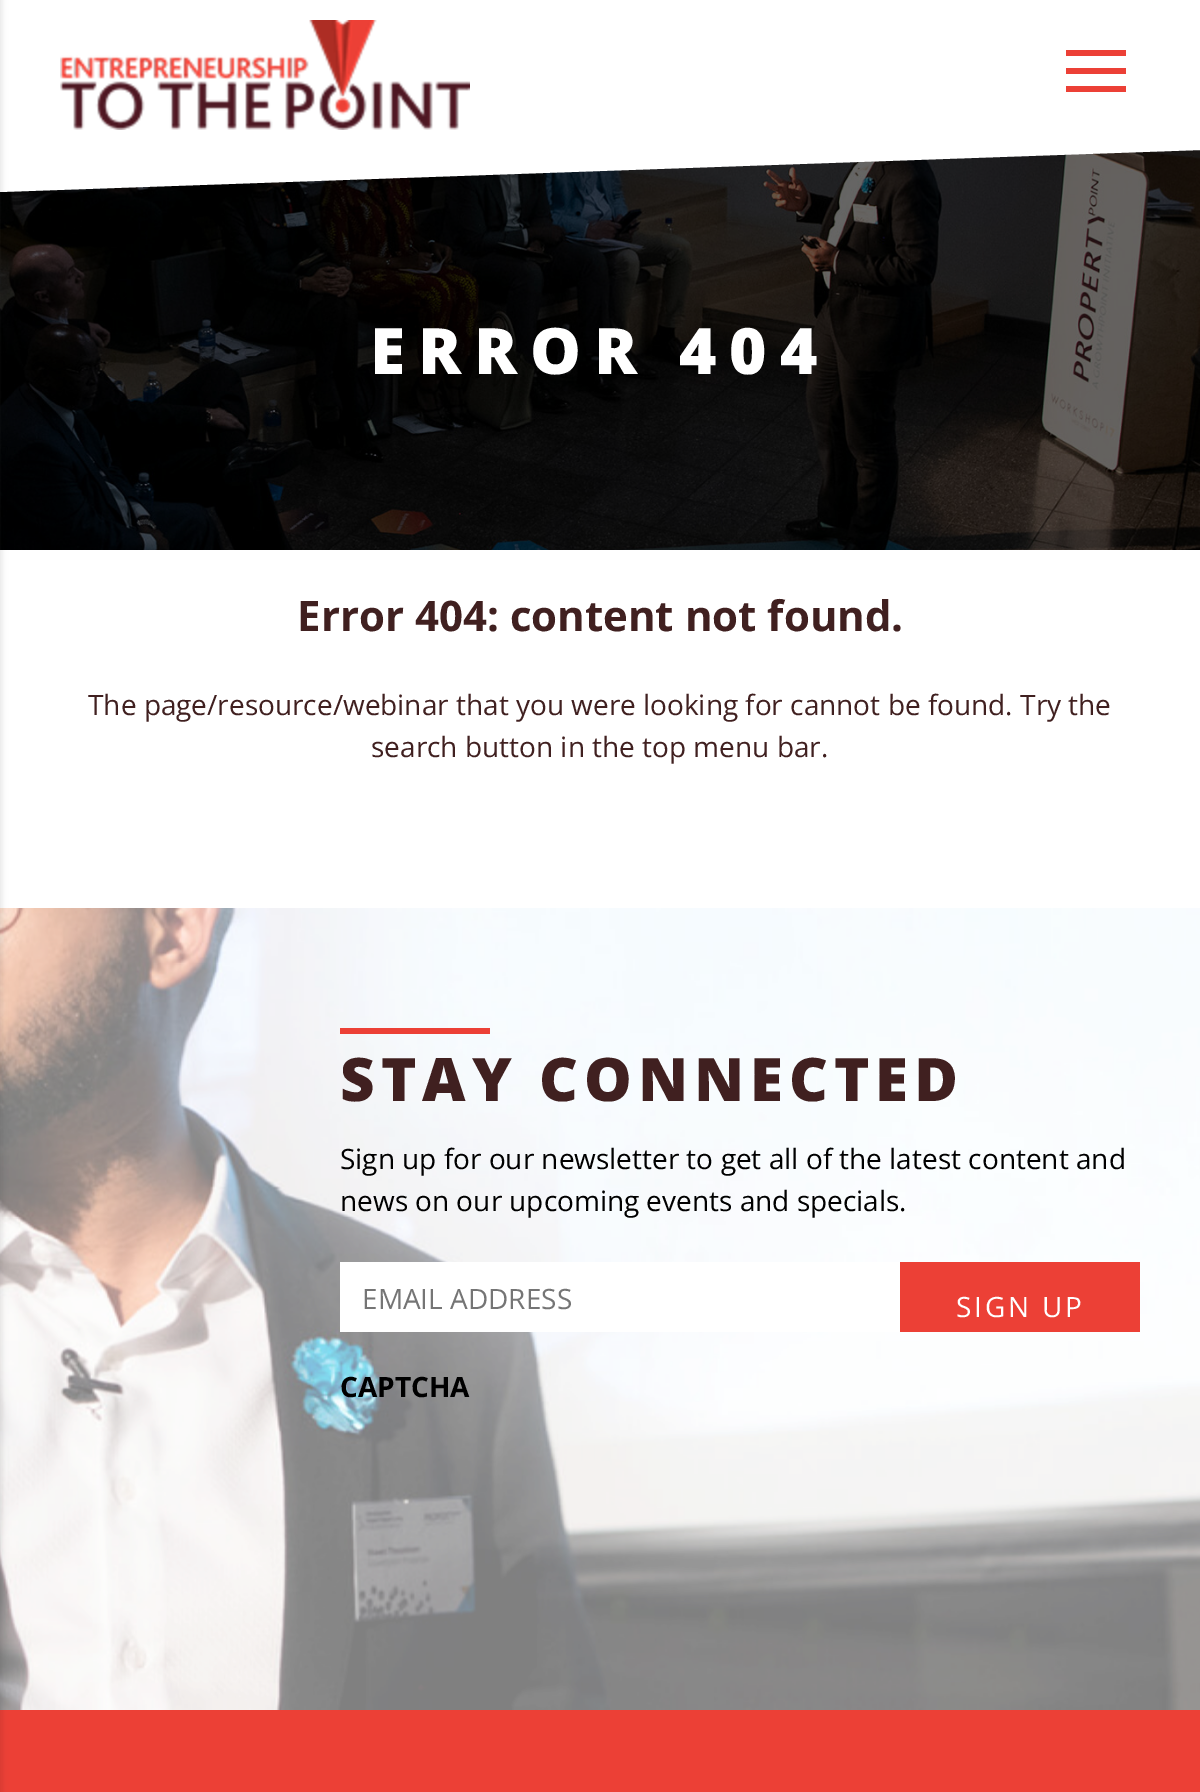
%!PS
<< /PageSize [1200 1792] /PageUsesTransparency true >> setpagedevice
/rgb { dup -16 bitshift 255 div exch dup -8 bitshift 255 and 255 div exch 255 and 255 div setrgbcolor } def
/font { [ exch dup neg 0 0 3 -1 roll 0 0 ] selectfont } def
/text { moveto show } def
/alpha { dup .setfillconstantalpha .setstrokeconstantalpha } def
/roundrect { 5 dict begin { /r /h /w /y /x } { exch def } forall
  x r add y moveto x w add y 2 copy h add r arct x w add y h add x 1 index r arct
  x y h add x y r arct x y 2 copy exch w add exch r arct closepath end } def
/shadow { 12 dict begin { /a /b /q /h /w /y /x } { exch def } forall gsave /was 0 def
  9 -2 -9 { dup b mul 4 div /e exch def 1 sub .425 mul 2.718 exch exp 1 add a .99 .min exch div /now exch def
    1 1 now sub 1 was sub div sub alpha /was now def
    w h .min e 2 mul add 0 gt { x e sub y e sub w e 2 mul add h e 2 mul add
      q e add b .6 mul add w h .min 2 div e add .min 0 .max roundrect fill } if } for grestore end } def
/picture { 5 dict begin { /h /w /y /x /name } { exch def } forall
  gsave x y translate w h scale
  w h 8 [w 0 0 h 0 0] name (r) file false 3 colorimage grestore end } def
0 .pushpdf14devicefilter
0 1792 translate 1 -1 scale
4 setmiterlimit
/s1 { /OpenSans-Bold 42 font 16#402020 rgb } def
/s2 { /OpenSans-Regular 28 font 16#402020 rgb } def
/s3 { /OpenSans-Regular 28 font 16#000000 rgb } def
/s4 { /OpenSans-Regular 28 font 16#757575 rgb } def
/s5 { /OpenSans-Bold 28 font 16#000000 rgb } def
16#FFFFFF rgb
0 0 1200 1792 rectfill
(pic1.raw) 0 150 1200 400 picture
0 42 moveto 1200 0 lineto 1200 150 lineto 0 192 lineto closepath fill
16#EC4036 rgb
0 1710 1200 82 rectfill
(pic3.raw) 0 908 1200 802 picture
16#000000 rgb
-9 -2 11 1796 0 3 0.1 shadow
(pic2.raw) 60 20 410 110 picture
16#EC4036 rgb
1066 50 60 6 rectfill
1066 68 60 6 rectfill
1066 86 60 6 rectfill
/OpenSans-ExtraBold 64 font
16#FFFFFF rgb
370 374 moveto 12.75 0 (ERROR 404) ashow
s1
(Error 404: content not found.) 297 631 text
s2
(The page/resource/webinar that you were looking for cannot be found. Try the) 88 715 text
(search button in the top menu bar.) 371 757 text
16#EC4036 rgb
340 1028 150 6 rectfill
/OpenSans-ExtraBold 60 font
16#402020 rgb
340 1101 moveto 6 0 (STAY CONNECTED) ashow
s3
(Sign up for our newsletter to get all of the latest content and) 340 1169 text
(news on our upcoming events and specials.) 340 1211 text
16#FFFFFF rgb
340 1262 560 70 rectfill
s4
(EMAIL ADDRESS) 362 1309 text
s5
(CAPTCHA) 340 1397 text
16#EC4036 rgb
900 1262 240 70 rectfill
/OpenSans-Regular 28 font
16#FFFFFF rgb
956 1317 moveto 2.75 0 (SIGN UP) ashow
.poppdf14devicefilter showpage
